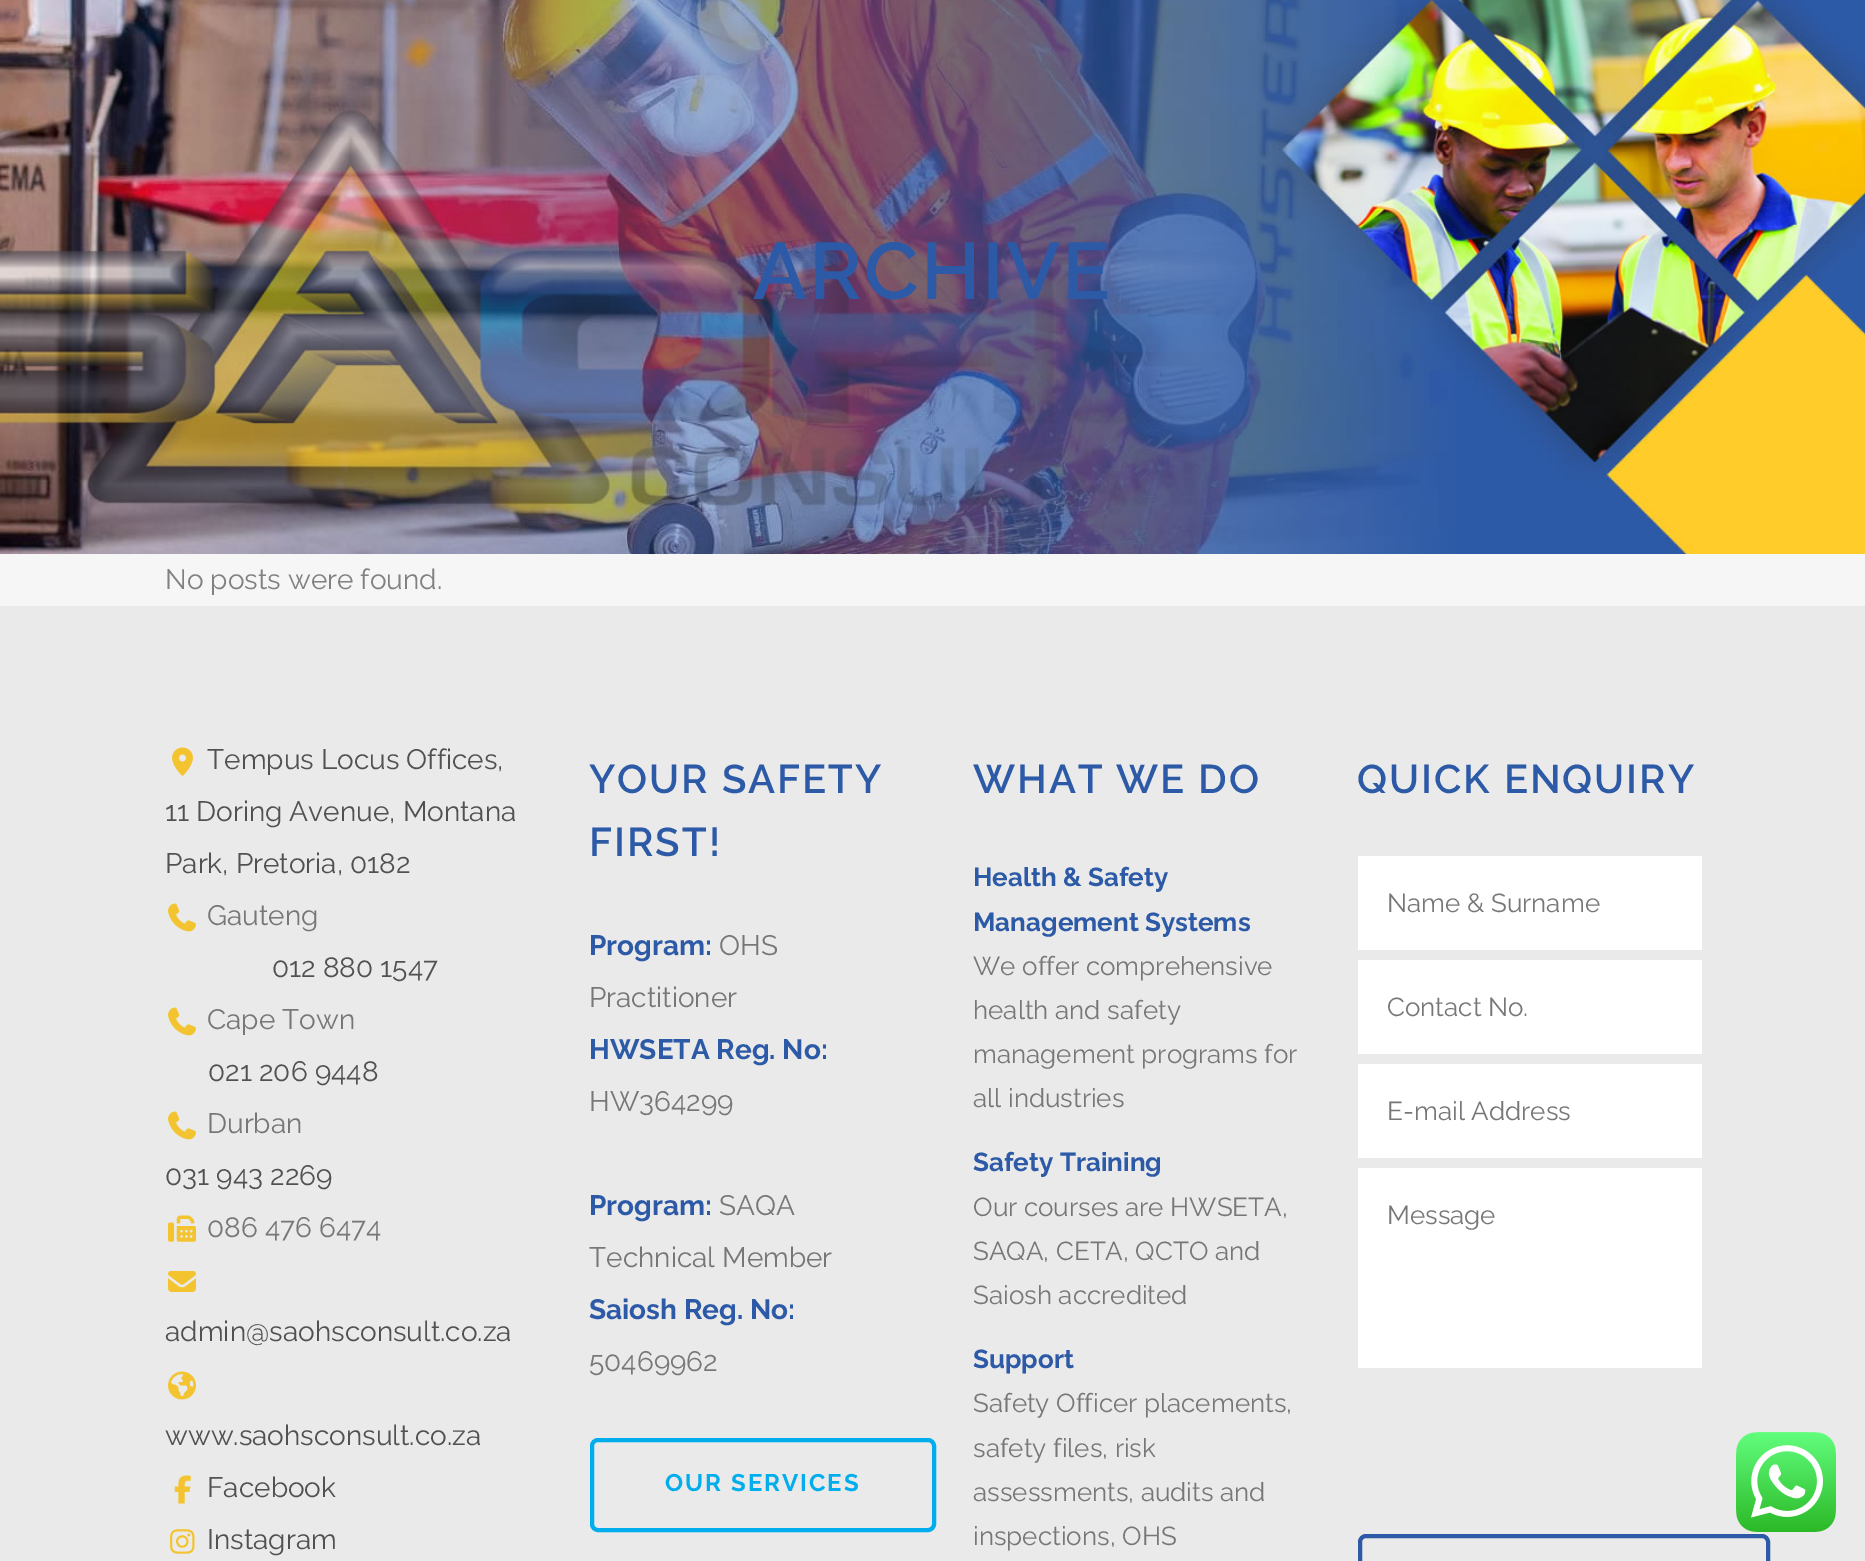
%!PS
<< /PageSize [1865 1561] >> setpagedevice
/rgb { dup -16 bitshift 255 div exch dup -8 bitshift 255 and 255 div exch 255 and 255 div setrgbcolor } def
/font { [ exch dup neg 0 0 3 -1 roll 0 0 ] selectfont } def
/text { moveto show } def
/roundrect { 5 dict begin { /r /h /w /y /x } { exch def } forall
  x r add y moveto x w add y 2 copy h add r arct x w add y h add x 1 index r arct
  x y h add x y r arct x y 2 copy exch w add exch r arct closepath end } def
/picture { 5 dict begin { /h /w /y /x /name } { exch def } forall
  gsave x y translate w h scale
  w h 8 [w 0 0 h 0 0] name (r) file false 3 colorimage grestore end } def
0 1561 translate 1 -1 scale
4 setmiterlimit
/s1 { /Raleway-Thin 28 font 16#818181 rgb } def
/s2 { /Raleway-Thin 28 font 16#515151 rgb } def
/s3 { /Raleway-Thin 28 font 16#777777 rgb } def
/s4 { /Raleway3-Thin 28 font 16#2D5AA6 rgb } def
/s5 { /Raleway3-Thin 26 font 16#2D5AA6 rgb } def
/s6 { /Raleway-Thin 26 font 16#777777 rgb } def
16#F6F6F6 rgb
0 0 1865 1561 rectfill
(pic1.raw) 0 0 1865 554 picture
/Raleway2-Thin 80 font
16#2D5AA6 rgb
753 299 moveto 2 0 (ARCHIVE) ashow
s1
(No posts were found.) 165 589 text
16#EAEAEA rgb
0 606 1865 955 rectfill
(pic2.raw) 172 747 21 29 picture
s2
(Tempus Locus Offices,) 207 769 text
(11 Doring Avenue, Montana) 165 821 text
(Park, Pretoria, 0182) 165 873 text
(pic3.raw) 168 903 28 29 picture
s3
(Gauteng) 207 925 text
s2
(012 880 1547) 272 977 text
(pic3.raw) 168 1007 28 29 picture
s3
(Cape Town) 207 1029 text
s2
(021 206 9448) 208 1081 text
(pic3.raw) 168 1111 28 29 picture
s3
(Durban) 207 1133 text
s2
(031 943 2269) 165 1185 text
(pic4.raw) 168 1215 28 27 picture
s3
(086 476 6474) 207 1237 text
(pic5.raw) 168 1271 28 21 picture
s2
(admin@saohsconsult.co.za) 165 1341 text
(pic6.raw) 168 1371 28 29 picture
(www.saohsconsult.co.za) 165 1445 text
(pic7.raw) 174 1475 17 29 picture
(Facebook) 207 1497 text
(pic8.raw) 170 1529 25 25 picture
(Instagram) 207 1549 text
/Raleway2-Thin 40 font
16#2D5AA6 rgb
589 793 moveto 2 0 (YOUR SAFETY) ashow
589 856 moveto 2 0 (FIRST!) ashow
s4
(Program:) 589 955 text
s3
(OHS) 719 955 text
(Practitioner) 589 1007 text
s4
(HWSETA Reg. No:) 589 1059 text
s3
(HW364299) 589 1111 text
s4
(Program:) 589 1215 text
s3
(SAQA) 719 1215 text
(Technical Member) 589 1267 text
s4
(Saiosh Reg. No:) 589 1319 text
s3
(50469962) 589 1371 text
16#00ADED rgb
4 setlinewidth
592 1440 342 90 6 roundrect stroke
/Raleway3-Thin 24 font
665 1491 moveto 2 0 (OUR SERVICES) ashow
/Raleway2-Thin 40 font
16#2D5AA6 rgb
973 793 moveto 2 0 (WHAT WE DO) ashow
s5
(Health & Safety) 973 886 text
(Management Systems) 973 931 text
s6
(We offer comprehensive) 973 975 text
(health and safety) 973 1019 text
(management programs for) 973 1063 text
(all industries) 973 1107 text
s5
(Safety Training) 973 1171 text
s6
(Our courses are HWSETA,) 973 1216 text
(SAQA, CETA, QCTO and) 973 1260 text
(Saiosh accredited) 973 1304 text
s5
(Support) 973 1368 text
s6
(Safety Officer placements,) 973 1412 text
(safety files, risk) 973 1457 text
(assessments, audits and) 973 1501 text
(inspections, OHS) 973 1545 text
/Raleway2-Thin 40 font
16#2D5AA6 rgb
1357 793 moveto 2 0 (QUICK ENQUIRY) ashow
16#FFFFFF rgb
1358 856 344 94 rectfill
s6
(Name & Surname) 1387 912 text
16#FFFFFF rgb
1358 960 344 94 rectfill
s6
(Contact No.) 1387 1016 text
16#FFFFFF rgb
1358 1064 344 94 rectfill
s6
(E-mail Address) 1387 1120 text
16#FFFFFF rgb
1358 1168 344 200 rectfill
s6
(Message) 1387 1224 text
16#2D5AA6 rgb
1360 1536 408 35 6 roundrect stroke
(pic9.raw) 1736 1432 100 100 picture
showpage
